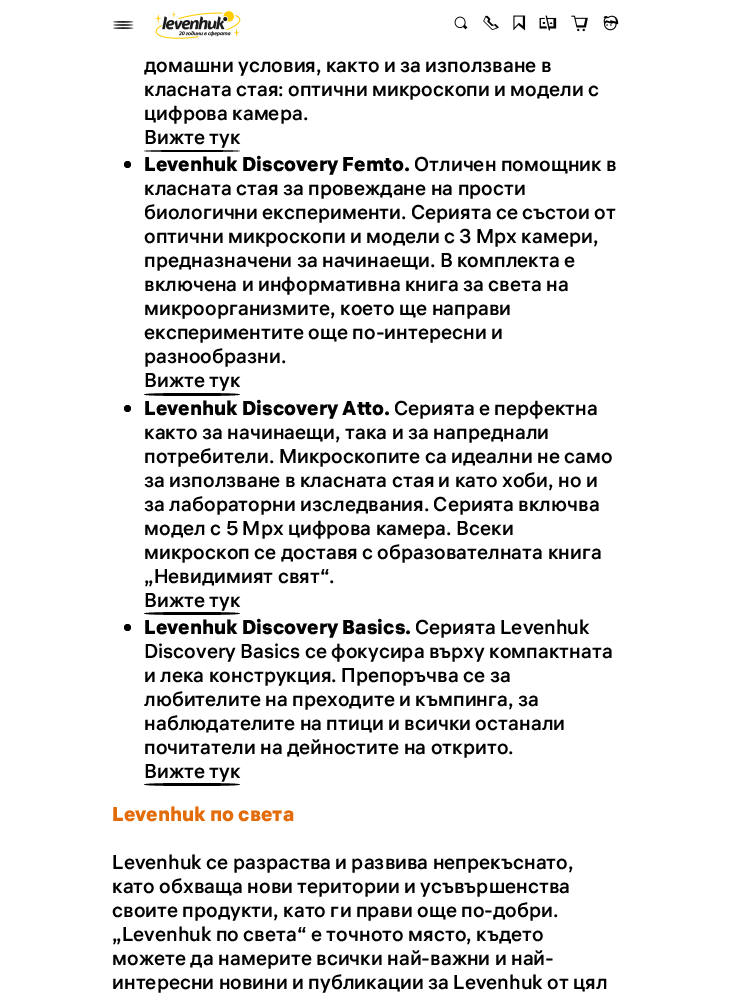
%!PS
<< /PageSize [731 1007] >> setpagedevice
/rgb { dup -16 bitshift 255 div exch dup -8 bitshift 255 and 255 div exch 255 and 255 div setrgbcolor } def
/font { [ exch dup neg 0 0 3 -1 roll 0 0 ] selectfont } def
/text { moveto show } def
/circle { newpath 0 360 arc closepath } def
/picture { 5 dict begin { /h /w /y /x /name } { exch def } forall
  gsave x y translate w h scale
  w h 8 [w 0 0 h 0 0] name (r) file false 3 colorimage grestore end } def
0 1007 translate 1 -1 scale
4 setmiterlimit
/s1 { /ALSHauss-Medium 20 font 16#000000 rgb } def
/s2 { /ALSHauss-Black 20 font 16#000000 rgb } def
/s3 { /ALSHauss-Black 20 font 16#E36C0A rgb } def
16#FFFFFF rgb
0 0 731 1007 rectfill
(pic1.raw) 113 21 21 8 picture
(pic2.raw) 155 11 86 28 picture
(pic3.raw) 454 16 14 14 picture
(pic4.raw) 483 15 16 16 picture
(pic5.raw) 513 15 13 16 picture
(pic6.raw) 539 15 18 16 picture
(pic7.raw) 571 15 17 17 picture
(pic8.raw) 603 15 16 16 picture
s1
(домашни условия, както и за използване в) 144 72 text
(класната стая: оптични микроскопи и модели с) 144 96 text
(цифрова камера.) 144 120 text
(Вижте тук) 144 144 text
192 150 moveto 218.5 150 240 150.5 240 151 curveto 240 151.5 218.5 152 192 152 curveto 165.5 152 144 151.5 144 151 curveto 144 150.5 165.5 150 192 150 curveto closepath fill
127.5 164.5 3.5 circle fill
s2
(Levenhuk Discovery Femto.) 144 171 text
s1
(Отличен помощник в) 414 171 text
(класната стая за провеждане на прости) 144 195 text
(биологични експерименти. Серията се състои от) 144 219 text
(оптични микроскопи и модели с 3 Mpx камери,) 144 243 text
(предназначени за начинаещи. В комплекта е) 144 267 text
(включена и информативна книга за света на) 144 291 text
(микроорганизмите, което ще направи) 144 315 text
(експериментите още по-интересни и) 144 339 text
(разнообразни.) 144 363 text
(Вижте тук) 144 387 text
192 393 moveto 218.5 393 240 393.5 240 394.5 curveto 240 395.5 218.5 396 192 396 curveto 165.5 396 144 395.5 144 394.5 curveto 144 393.5 165.5 393 192 393 curveto closepath fill
127.5 408.5 3.5 circle fill
s2
(Levenhuk Discovery Atto.) 144 415 text
s1
(Серията е перфектна) 394 415 text
(както за начинаещи, така и за напреднали) 144 439 text
(потребители. Микроскопите са идеални не само) 144 463 text
(за използване в класната стая и като хоби, но и) 144 487 text
(за лабораторни изследвания. Серията включва) 144 511 text
(модел с 5 Mpx цифрова камера. Всеки) 144 535 text
(микроскоп се доставя с образователната книга) 144 559 text
(„Невидимият свят“.) 144 583 text
(Вижте тук) 144 607 text
192 612 moveto 218.5 612 240 612.5 240 613.5 curveto 240 614.5 218.5 615 192 615 curveto 165.5 615 144 614.5 144 613.5 curveto 144 612.5 165.5 612 192 612 curveto closepath fill
127.5 627.5 3.5 circle fill
s2
(Levenhuk Discovery Basics.) 144 634 text
s1
(Серията Levenhuk) 415 634 text
(Discovery Basics се фокусира върху компактната) 144 658 text
(и лека конструкция. Препоръчва се за) 144 682 text
(любителите на преходите и къмпинга, за) 144 706 text
(наблюдателите на птици и всички останали) 144 730 text
(почитатели на дейностите на открито.) 144 754 text
(Вижте тук) 144 778 text
192 783 moveto 218.5 783 240 783.5 240 784.5 curveto 240 785.5 218.5 786 192 786 curveto 165.5 786 144 785.5 144 784.5 curveto 144 783.5 165.5 783 192 783 curveto closepath fill
s3
(Levenhuk по света) 112 821 text
s1
(Levenhuk се разраства и развива непрекъснато,) 112 869 text
(като обхваща нови територии и усъвършенства) 112 893 text
(своите продукти, като ги прави още по-добри.) 112 917 text
(„Levenhuk по света“ е точното място, където) 112 941 text
(можете да намерите всички най-важни и най-) 112 965 text
(интересни новини и публикации за Levenhuk от цял) 112 989 text
showpage
